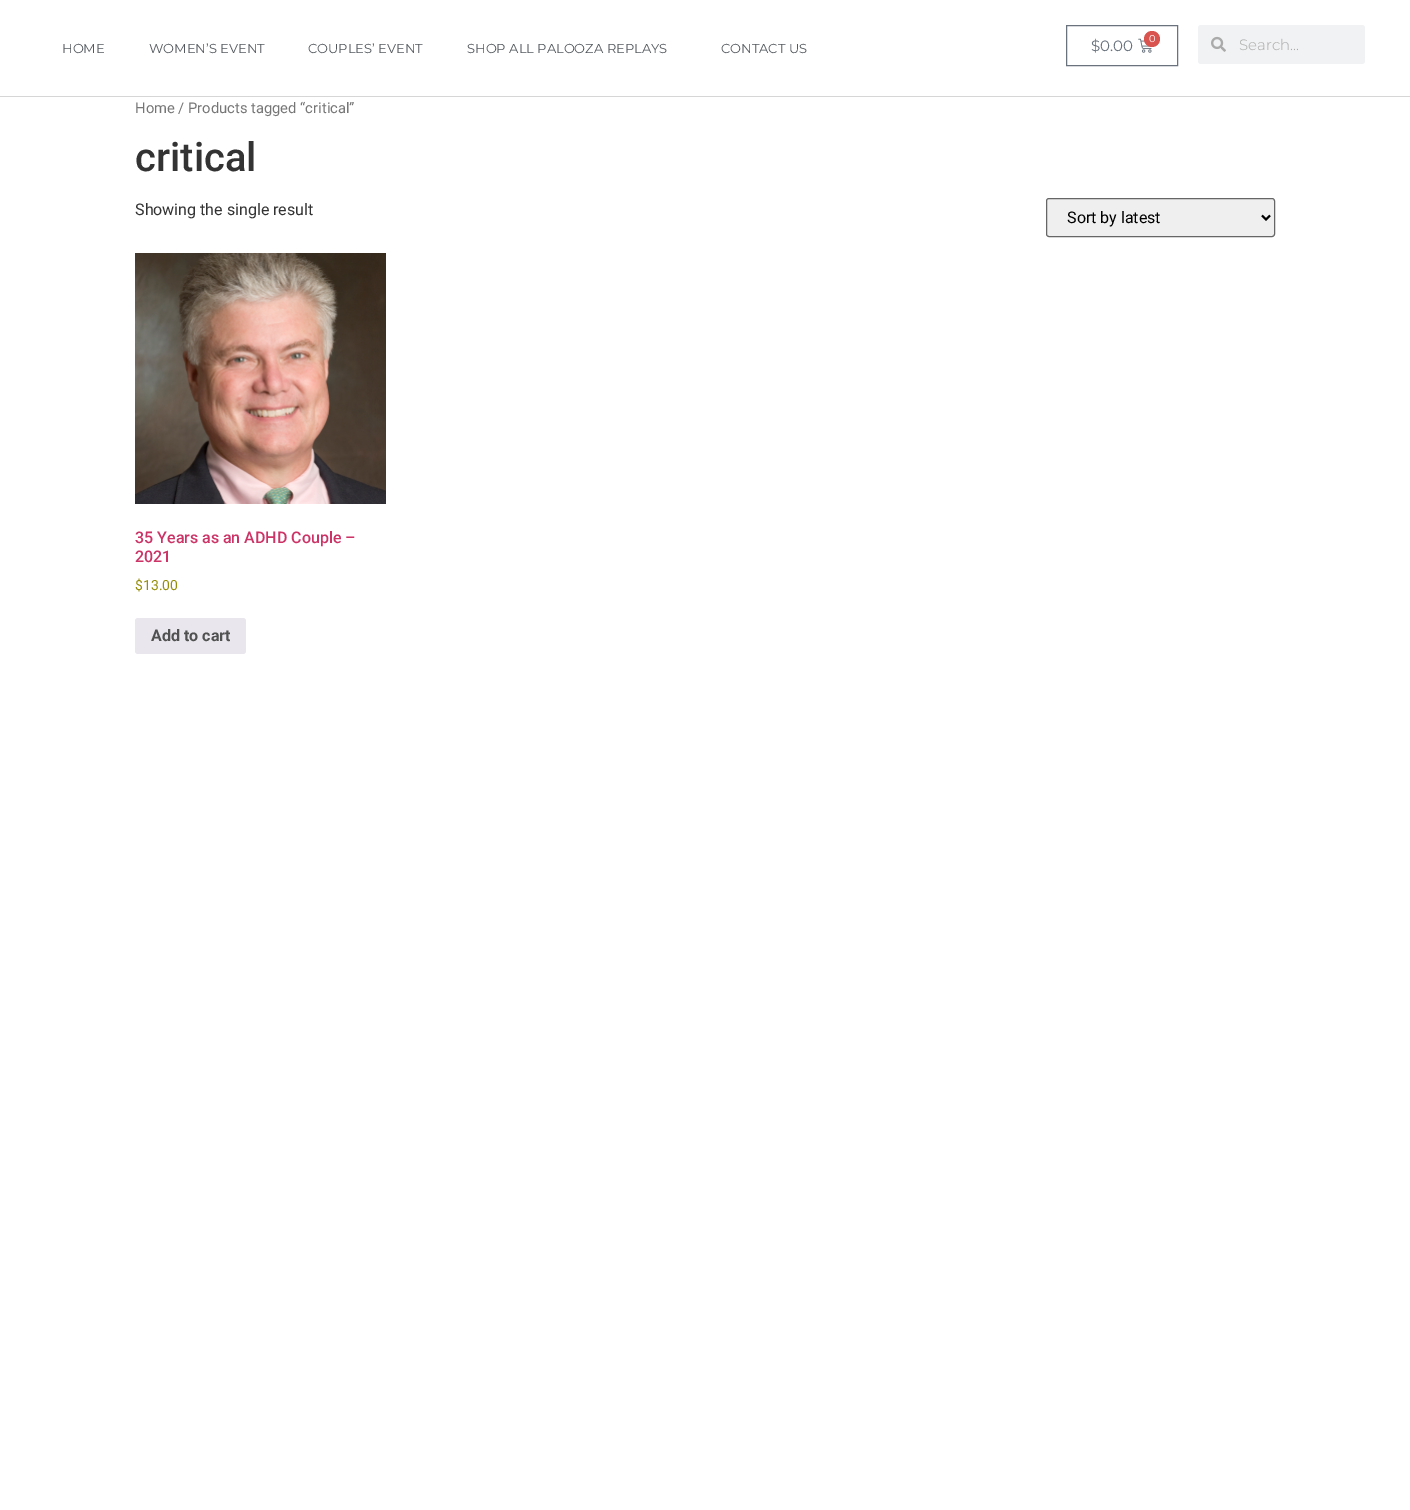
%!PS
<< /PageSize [1410 1510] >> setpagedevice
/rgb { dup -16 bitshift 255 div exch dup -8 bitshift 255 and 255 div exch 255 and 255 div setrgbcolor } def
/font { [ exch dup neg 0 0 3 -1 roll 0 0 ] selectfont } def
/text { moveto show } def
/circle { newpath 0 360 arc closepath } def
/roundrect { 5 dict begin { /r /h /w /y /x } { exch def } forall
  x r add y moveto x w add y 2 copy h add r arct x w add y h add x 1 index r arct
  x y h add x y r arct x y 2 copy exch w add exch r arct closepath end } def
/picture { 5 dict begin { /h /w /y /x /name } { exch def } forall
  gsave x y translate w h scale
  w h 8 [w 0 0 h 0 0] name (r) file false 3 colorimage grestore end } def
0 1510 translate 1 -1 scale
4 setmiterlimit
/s1 { /Montserrat-Regular 13 font 16#54595F rgb } def
/s2 { /Montserrat-Regular 15 font 16#69727D rgb } def
/s3 { /Montserrat-Regular 10 font 16#FFFFFF rgb } def
/s4 { /Montserrat-Light 15 font 16#AAAAAA rgb } def
/s5 { /Roboto-Regular 14.75 font 16#767676 rgb } def
/s6 { /Roboto-Medium 40 font 16#333333 rgb } def
/s7 { /Roboto-Regular 16 font 16#333333 rgb } def
/s8 { /Roboto-Regular 16 font 16#000000 rgb } def
/s9 { /Roboto-Medium 16 font 16#CC3366 rgb } def
/s10 { /Roboto-Regular 14 font 16#958E09 rgb } def
/s11 { /Roboto-Bold 16 font 16#515151 rgb } def
16#FFFFFF rgb
0 0 1410 1510 rectfill
16#D6D6D6 rgb
0 96 1410 1 rectfill
s1
(HOME) 62 53 text
(WOMEN’S EVENT) 149 53 text
(COUPLES’ EVENT) 308 53 text
(SHOP ALL PALOOZA REPLAYS) 467 53 text
(CONTACT US) 721 53 text
16#69727D rgb
1066.5 25.5 111 40 rectstroke
s2
($0.00) 1091 51 text
(pic1.raw) 1138 38 14 15 picture
16#D9534F rgb
1152 39 8 circle fill
s3
(0) 1149 42 text
16#F1F2F3 rgb
1198 25 167 39 3 roundrect fill
(pic2.raw) 1211 36 15 16 picture
s4
(Search...) 1239 50 text
s5
(Home / Products tagged “critical”) 135 113 text
s6
(critical) 135 171 text
s7
(Showing the single result) 135 215 text
16#EFEFEF rgb
1046.5 198.5 228 38 2.5 roundrect gsave fill grestore
16#666666 rgb
stroke
16#000000 rgb
2 setlinewidth
1262 215.5 moveto 1266 219.5 lineto 1270 215.5 lineto stroke
(Sort by latest) 1067 223 text
(pic3.raw) 135 253 251 251 picture
s9
(35 Years as an ADHD Couple –) 135 543 text
(2021) 135 562 text
s10
($13.00) 135 590 text
16#E9E6ED rgb
135 618 111 36 3 roundrect fill
s11
(Add to cart) 151 641 text
showpage
